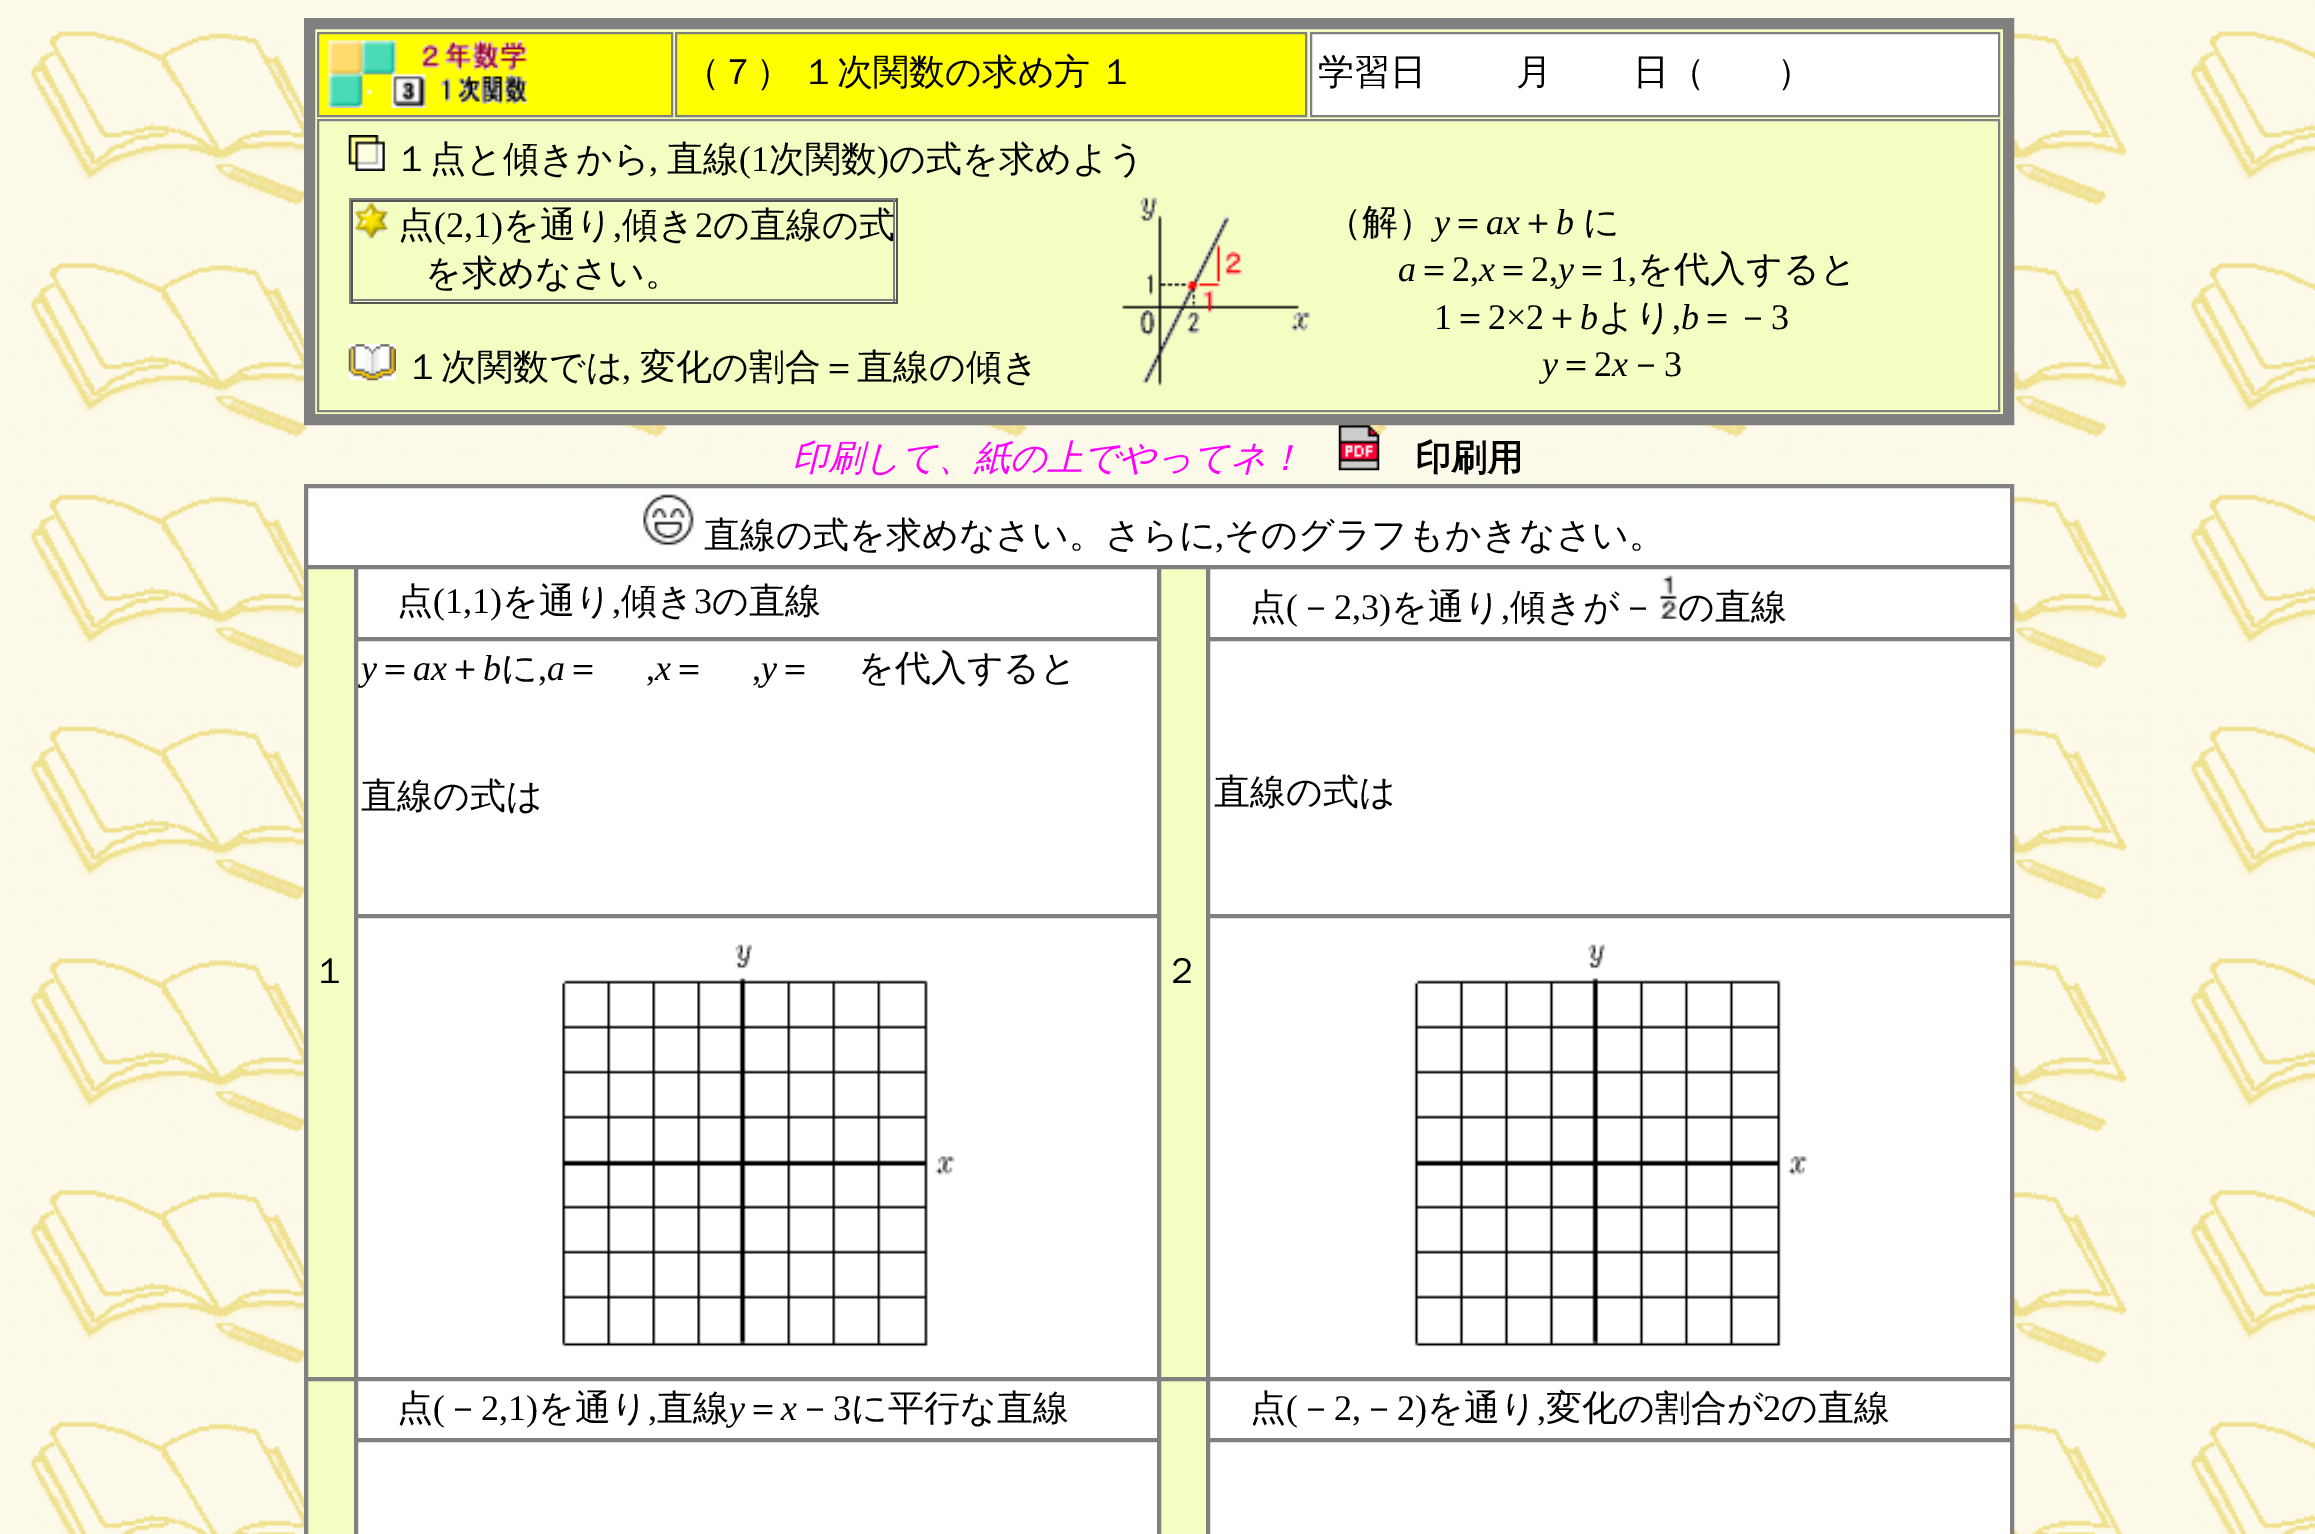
%!PS
<< /PageSize [2315 1534] >> setpagedevice
/rgb { dup -16 bitshift 255 div exch dup -8 bitshift 255 and 255 div exch 255 and 255 div setrgbcolor } def
/font { [ exch dup neg 0 0 3 -1 roll 0 0 ] selectfont } def
/text { moveto show } def
/picture { 5 dict begin { /h /w /y /x /name } { exch def } forall
  gsave x y translate w h scale
  w h 8 [w 0 0 h 0 0] name (r) file false 3 colorimage grestore end } def
0 1534 translate 1 -1 scale
4 setmiterlimit
/s1 { /WenQuanYiZenHei-Medium 36 font 16#000000 rgb } def
/s2 { /LiberationSerif-Regular 36 font 16#000000 rgb } def
/s3 { /LiberationSerif-Italic 36 font 16#000000 rgb } def
/s4 { /WenQuanYiZenHei-MediumItalic 36 font 16#FF00FF rgb } def
/s5 { /WenQuanYiZenHei-Bold 36 font 16#000000 rgb } def
16#FFFFFF rgb
0 0 2315 1534 rectfill
(pic1.raw) 0 0 2315 1534 picture
16#F2FEC2 rgb
309.5 23.5 moveto 2008.5 23.5 lineto 2008.5 419.5 lineto 309.5 419.5 lineto closepath gsave fill grestore
16#808080 rgb
11 setlinewidth
stroke
16#FFFF00 rgb
318 33 moveto 672 33 lineto 672 116 lineto 318 116 lineto closepath gsave fill grestore
16#808080 rgb
2 setlinewidth
stroke
(pic2.raw) 328 40 200 68 picture
16#FFFF00 rgb
676 33 moveto 1306 33 lineto 1306 116 lineto 676 116 lineto closepath gsave fill grestore
16#808080 rgb
stroke
/WenQuanYiZenHei-Medium 36 font
16#000000 rgb
684 84 moveto -2 0 32 (（７） １次関数の求め方 １) widthshow
16#FFFFFF rgb
1311 33 moveto 1999 33 lineto 1999 116 lineto 1311 116 lineto closepath gsave fill grestore
16#808080 rgb
stroke
16#000000 rgb
1318 84 moveto -2 0 32 (学習日　 　 月) widthshow
(日（　　）) 1633 84 text
16#808080 rgb
318 120 1681 291 rectstroke
(pic3.raw) 348 135 37 36 picture
s1
(１点と傾きから) 394 171 text
s2
(,) 649 171 text
s1
(直線) 667 171 text
s2
(\(1) 739 171 text
s1
(次関数) 769 171 text
s2
(\)) 877 171 text
s1
(の式を求めよう) 889 171 text
16#808080 rgb
349 198 549 2 rectfill
16#555555 rgb
896 198 2 106 rectfill
349 302 549 2 rectfill
16#808080 rgb
349 198 2 106 rectfill
16#555555 rgb
351 200 545 2 rectfill
16#808080 rgb
893 200 2 102 rectfill
351 299 545 2 rectfill
16#555555 rgb
351 200 2 102 rectfill
(pic4.raw) 355 202 33 37 picture
s1
(点) 398 237 text
s2
(\(2,1\)) 434 237 text
s1
(を通り) 503 237 text
(傾き) 622 237 text
s2
(2) 695 237 text
s1
(の直線の式) 713 237 text
s2
(,) 613 237 text
s1
(を求めなさい。) 425 285 text
(pic5.raw) 348 344 48 37 picture
(１次関数では) 405 379 text
s2
(,) 622 379 text
s1
(変化の割合＝直線の傾き) 640 379 text
(pic6.raw) 1122 197 189 189 picture
(（解）) 1326 234 text
s3
(y) 1434 234 text
s1
(＝) 1450 234 text
s3
(ax) 1486 234 text
s1
(＋) 1520 234 text
s3
(b) 1556 234 text
s1
(に) 1583 234 text
s3
(a) 1398 281 text
s1
(＝) 1416 281 text
s2
(2,) 1452 281 text
s3
(x) 1479 281 text
s1
(＝) 1495 281 text
s2
(2,) 1531 281 text
s3
(y) 1558 281 text
s1
(＝) 1574 281 text
s2
(1,) 1610 281 text
s1
(を代入すると) 1637 281 text
s2
(1) 1434 329 text
s1
(＝) 1452 329 text
s2
(2×2) 1488 329 text
s1
(＋) 1544 329 text
s3
(b) 1580 329 text
s1
(より) 1598 329 text
s3
(b) 1681 329 text
s1
(＝－) 1699 329 text
s2
(3) 1771 329 text
(,) 1672 329 text
s3
(y) 1542 376 text
s1
(＝) 1558 376 text
s2
(2) 1594 376 text
s3
(x) 1612 376 text
s1
(－) 1628 376 text
s2
(3) 1664 376 text
s4
(印刷して、紙の上でやってネ！) 792 470 text
(pic7.raw) 1338 425 42 46 picture
s5
(印刷用) 1415 470 text
16#FFFFFF rgb
308 488 1702 1046 rectfill
16#808080 rgb
305 485 1708 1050 rectstroke
307 487 1704 79 rectstroke
(pic8.raw) 643 494 51 52 picture
s1
(直線の式を求めなさい。さらに) 704 547 text
s2
(,) 1215 547 text
s1
(そのグラフもかきなさい。) 1224 547 text
16#808080 rgb
357 568 801 70 rectstroke
s1
(点) 397 613 text
s2
(\(1,1\)) 433 613 text
s1
(を通り) 502 613 text
s2
(,) 612 613 text
s1
(傾き) 621 613 text
s2
(3) 694 613 text
s1
(の直線) 712 613 text
16#808080 rgb
1209 568 802 70 rectstroke
s1
(点) 1250 619 text
s2
(\() 1286 619 text
s1
(－) 1298 619 text
s2
(2,3\)) 1334 619 text
s1
(を通り) 1391 619 text
(傾きが－) 1510 619 text
(pic9.raw) 1660 575 17 44 picture
(の直線) 1678 619 text
s2
(,) 1501 619 text
16#F2FEC2 rgb
307 568 moveto 355 568 lineto 355 1378 lineto 307 1378 lineto closepath gsave fill grestore
16#808080 rgb
stroke
s1
(１) 312 983 text
16#F2FEC2 rgb
1160 568 moveto 1207 568 lineto 1207 1378 lineto 1160 1378 lineto closepath gsave fill grestore
16#808080 rgb
stroke
s1
(２) 1164 983 text
16#808080 rgb
357 640 801 275 rectstroke
s3
(y) 361 680 text
s1
(＝) 377 680 text
s3
(ax) 413 680 text
s1
(＋) 447 680 text
s3
(b) 483 680 text
s1
(に) 501 680 text
s3
(a) 547 680 text
s1
(＝) 565 680 text
s3
(x) 655 680 text
s1
(＝) 671 680 text
s2
(,) 752 680 text
s3
(y) 761 680 text
/WenQuanYiZenHei-Medium 36 font
777 680 moveto -2 0 32 (＝　 を代入すると) widthshow
s2
(,) 538 680 text
(,) 646 680 text
s1
(直線の式は) 361 808 text
16#808080 rgb
1209 640 802 275 rectstroke
s1
(直線の式は) 1214 804 text
16#808080 rgb
357 917 801 461 rectstroke
(pic10.raw) 562 944 393 403 picture
1209 917 802 461 rectstroke
(pic11.raw) 1414 944 394 403 picture
16#F2FEC2 rgb
307 1380 moveto 355 1380 lineto 355 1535 lineto 307 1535 lineto closepath gsave fill grestore
16#808080 rgb
stroke
357 1380 801 59 rectstroke
s1
(点) 397 1420 text
s2
(\() 433 1420 text
s1
(－) 445 1420 text
s2
(2,1\)) 481 1420 text
s1
(を通り) 538 1420 text
(直線) 657 1420 text
s3
(y) 729 1420 text
s1
(＝) 745 1420 text
s3
(x) 781 1420 text
s1
(－) 797 1420 text
s2
(3) 833 1420 text
s1
(に平行な直線) 851 1420 text
s2
(,) 648 1420 text
16#F2FEC2 rgb
1160 1380 moveto 1207 1380 lineto 1207 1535 lineto 1160 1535 lineto closepath gsave fill grestore
16#808080 rgb
stroke
1209 1380 802 59 rectstroke
s1
(点) 1250 1420 text
s2
(\() 1286 1420 text
s1
(－) 1298 1420 text
s2
(2,) 1334 1420 text
s1
(－) 1361 1420 text
s2
(2\)) 1397 1420 text
s1
(を通り) 1427 1420 text
(変化の割合が) 1546 1420 text
s2
(2) 1763 1420 text
s1
(の直線) 1781 1420 text
s2
(,) 1537 1420 text
16#808080 rgb
357 1441 801 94 rectstroke
1209 1441 802 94 rectstroke
showpage
